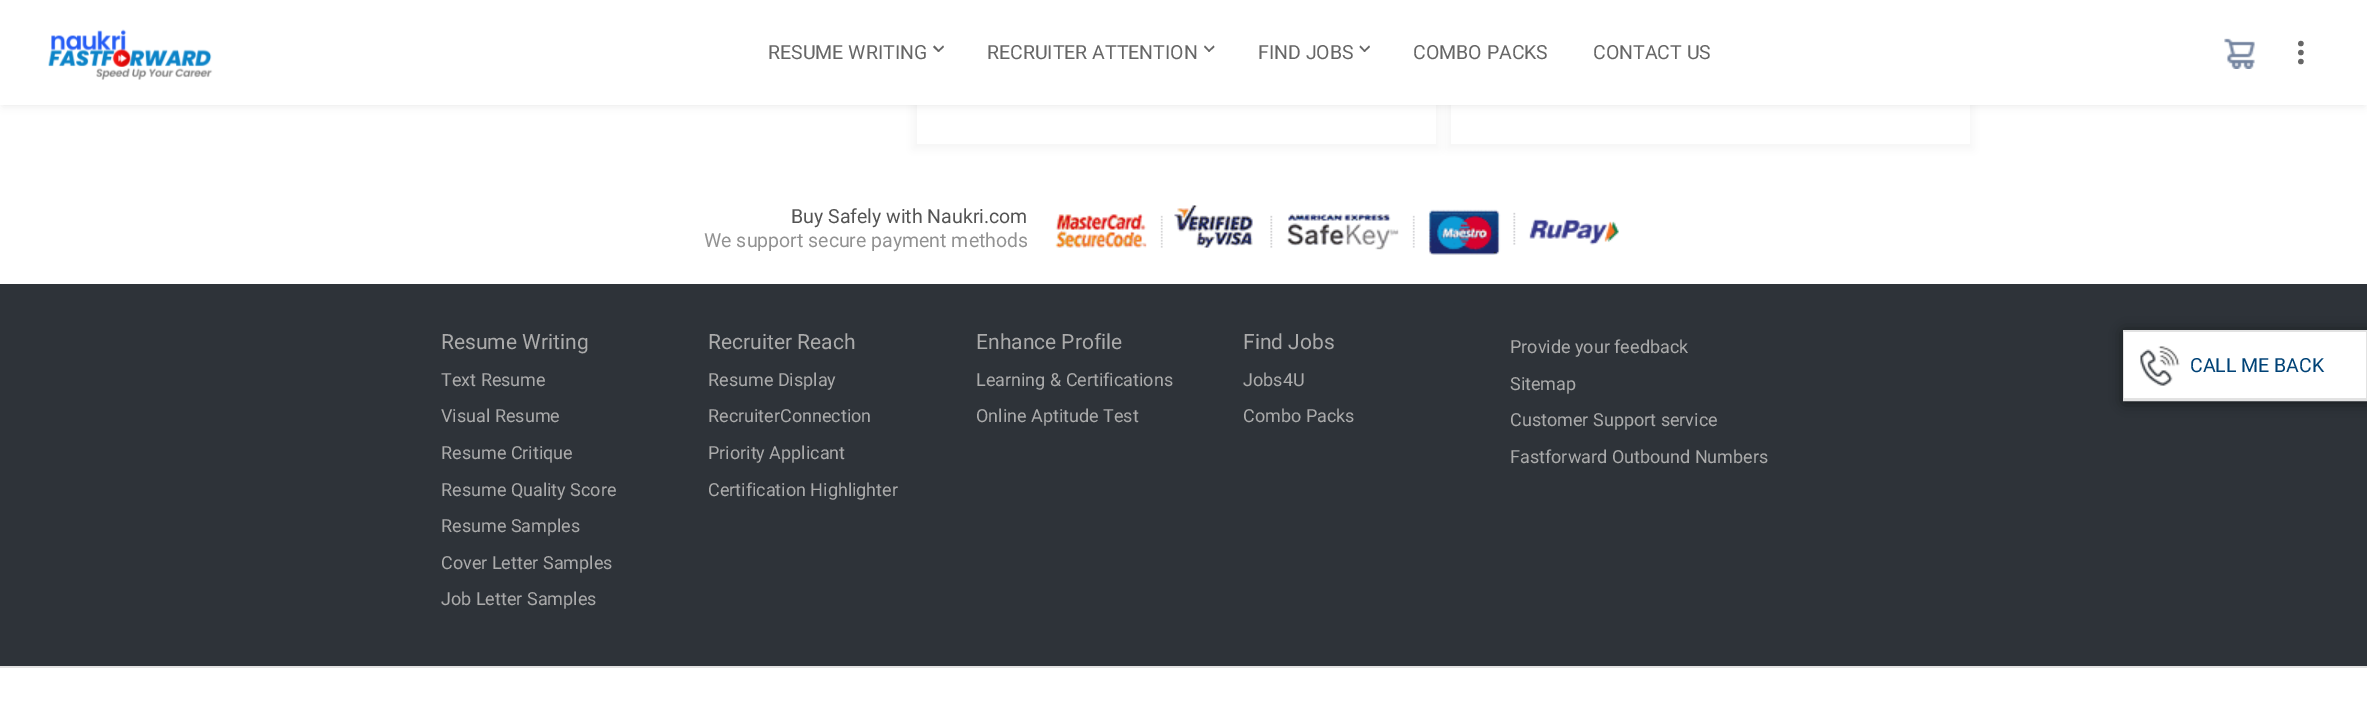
%!PS
<< /PageSize [2367 719] /PageUsesTransparency true >> setpagedevice
/rgb { dup -16 bitshift 255 div exch dup -8 bitshift 255 and 255 div exch 255 and 255 div setrgbcolor } def
/font { [ exch dup neg 0 0 3 -1 roll 0 0 ] selectfont } def
/text { moveto show } def
/alpha { dup .setfillconstantalpha .setstrokeconstantalpha } def
/roundrect { 5 dict begin { /r /h /w /y /x } { exch def } forall
  x r add y moveto x w add y 2 copy h add r arct x w add y h add x 1 index r arct
  x y h add x y r arct x y 2 copy exch w add exch r arct closepath end } def
/shadow { 12 dict begin { /a /b /q /h /w /y /x } { exch def } forall gsave /was 0 def
  9 -2 -9 { dup b mul 4 div /e exch def 1 sub .425 mul 2.718 exch exp 1 add a .99 .min exch div /now exch def
    1 1 now sub 1 was sub div sub alpha /was now def
    w h .min e 2 mul add 0 gt { x e sub y e sub w e 2 mul add h e 2 mul add
      q e add b .6 mul add w h .min 2 div e add .min 0 .max roundrect fill } if } for grestore end } def
/picture { 5 dict begin { /h /w /y /x /name } { exch def } forall
  gsave x y translate w h scale
  w h 8 [w 0 0 h 0 0] name (r) file false 3 colorimage grestore end } def
0 .pushpdf14devicefilter
0 719 translate 1 -1 scale
4 setmiterlimit
/s1 { /Roboto-Regular 19.5 font 16#666666 rgb } def
/s2 { /Roboto-Regular 19.5 font 16#545454 rgb } def
/s3 { /Roboto-Regular 19.5 font 16#929292 rgb } def
/s4 { /Roboto-Regular 21 font 16#ABABAB rgb } def
/s5 { /Roboto-Regular 18 font 16#ABABAB rgb } def
/s6 { /Roboto-Regular 19.5 font 16#004276 rgb } def
16#FFFFFF rgb
0 0 2367 719 rectfill
16#000000 rgb
912 -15 528 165 0 5 0.04 shadow
16#FFFFFF rgb
917 105 519 39 rectfill
16#000000 rgb
1446 -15 528 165 0 5 0.04 shadow
16#FFFFFF rgb
1451 105 519 39 rectfill
16#000000 rgb
3 6 2361 99 0 4.5 0.1 shadow
16#FFFFFF rgb
0 0 2367 105 rectfill
(pic1.raw) 48 29 165 51 picture
s1
(RESUME WRITING) 768 59 text
943 45.5 moveto 944 47 lineto 938.5 52 lineto 937.5 51 lineto closepath fill
934.5 45.5 moveto 939.5 51 lineto 938.5 52 lineto 933 47 lineto closepath fill
(RECRUITER ATTENTION) 987 59 text
1213.5 45.5 moveto 1214.5 47 lineto 1209 52 lineto 1208 51 lineto closepath fill
1205 45.5 moveto 1210 51 lineto 1209 52 lineto 1204 47 lineto closepath fill
(FIND JOBS) 1258 59 text
1369 45.5 moveto 1370 47 lineto 1364.5 52 lineto 1363.5 51 lineto closepath fill
1360.5 45.5 moveto 1365.5 51 lineto 1364.5 52 lineto 1359.5 47 lineto closepath fill
(COMBO PACKS) 1413 59 text
(CONTACT US) 1593 59 text
(pic2.raw) 2224 38 31 31 picture
/Roboto-Regular 27 font
gsave 2291 39 translate 90 rotate 0 0 moveto (•••) show grestore
s2
(Buy Safely with Naukri.com) 791 223 text
s3
(We support secure payment methods) 704 247 text
(pic3.raw) 1055 205 564 50 picture
16#2E3339 rgb
0 284 2367 382 rectfill
s4
(Resume Writing) 441 349 text
s5
(Text Resume) 441 386 text
(Visual Resume) 441 422 text
(Resume Critique) 441 459 text
(Resume Quality Score) 441 496 text
(Resume Samples) 441 532 text
(Cover Letter Samples) 441 569 text
(Job Letter Samples) 441 605 text
s4
(Recruiter Reach) 708 349 text
s5
(Resume Display) 708 386 text
(RecruiterConnection) 708 422 text
(Priority Applicant) 708 459 text
(Certification Highlighter) 708 496 text
s4
(Enhance Profile) 976 349 text
s5
(Learning & Certifications) 976 386 text
(Online Aptitude Test) 976 422 text
s4
(Find Jobs) 1243 349 text
s5
(Jobs4U) 1243 386 text
(Combo Packs) 1243 422 text
(Provide your feedback) 1510 353 text
(Sitemap) 1510 390 text
(Customer Support service) 1510 426 text
(Fastforward Outbound Numbers) 1510 463 text
16#E2E2E2 rgb
0 666 2367 2 rectfill
16#000000 rgb
2124 332 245 70 0 7 0.6 shadow
16#E2E2E2 rgb
2 setlinewidth
2124 331 242 69 rectstroke
16#FFFFFF rgb
2124 332 242 66 rectfill
16#E2E2E2 rgb
2124 398 242 1 rectfill
(pic4.raw) 2140 346 40 40 picture
s6
(CALL ME BACK) 2190 372 text
.poppdf14devicefilter showpage
